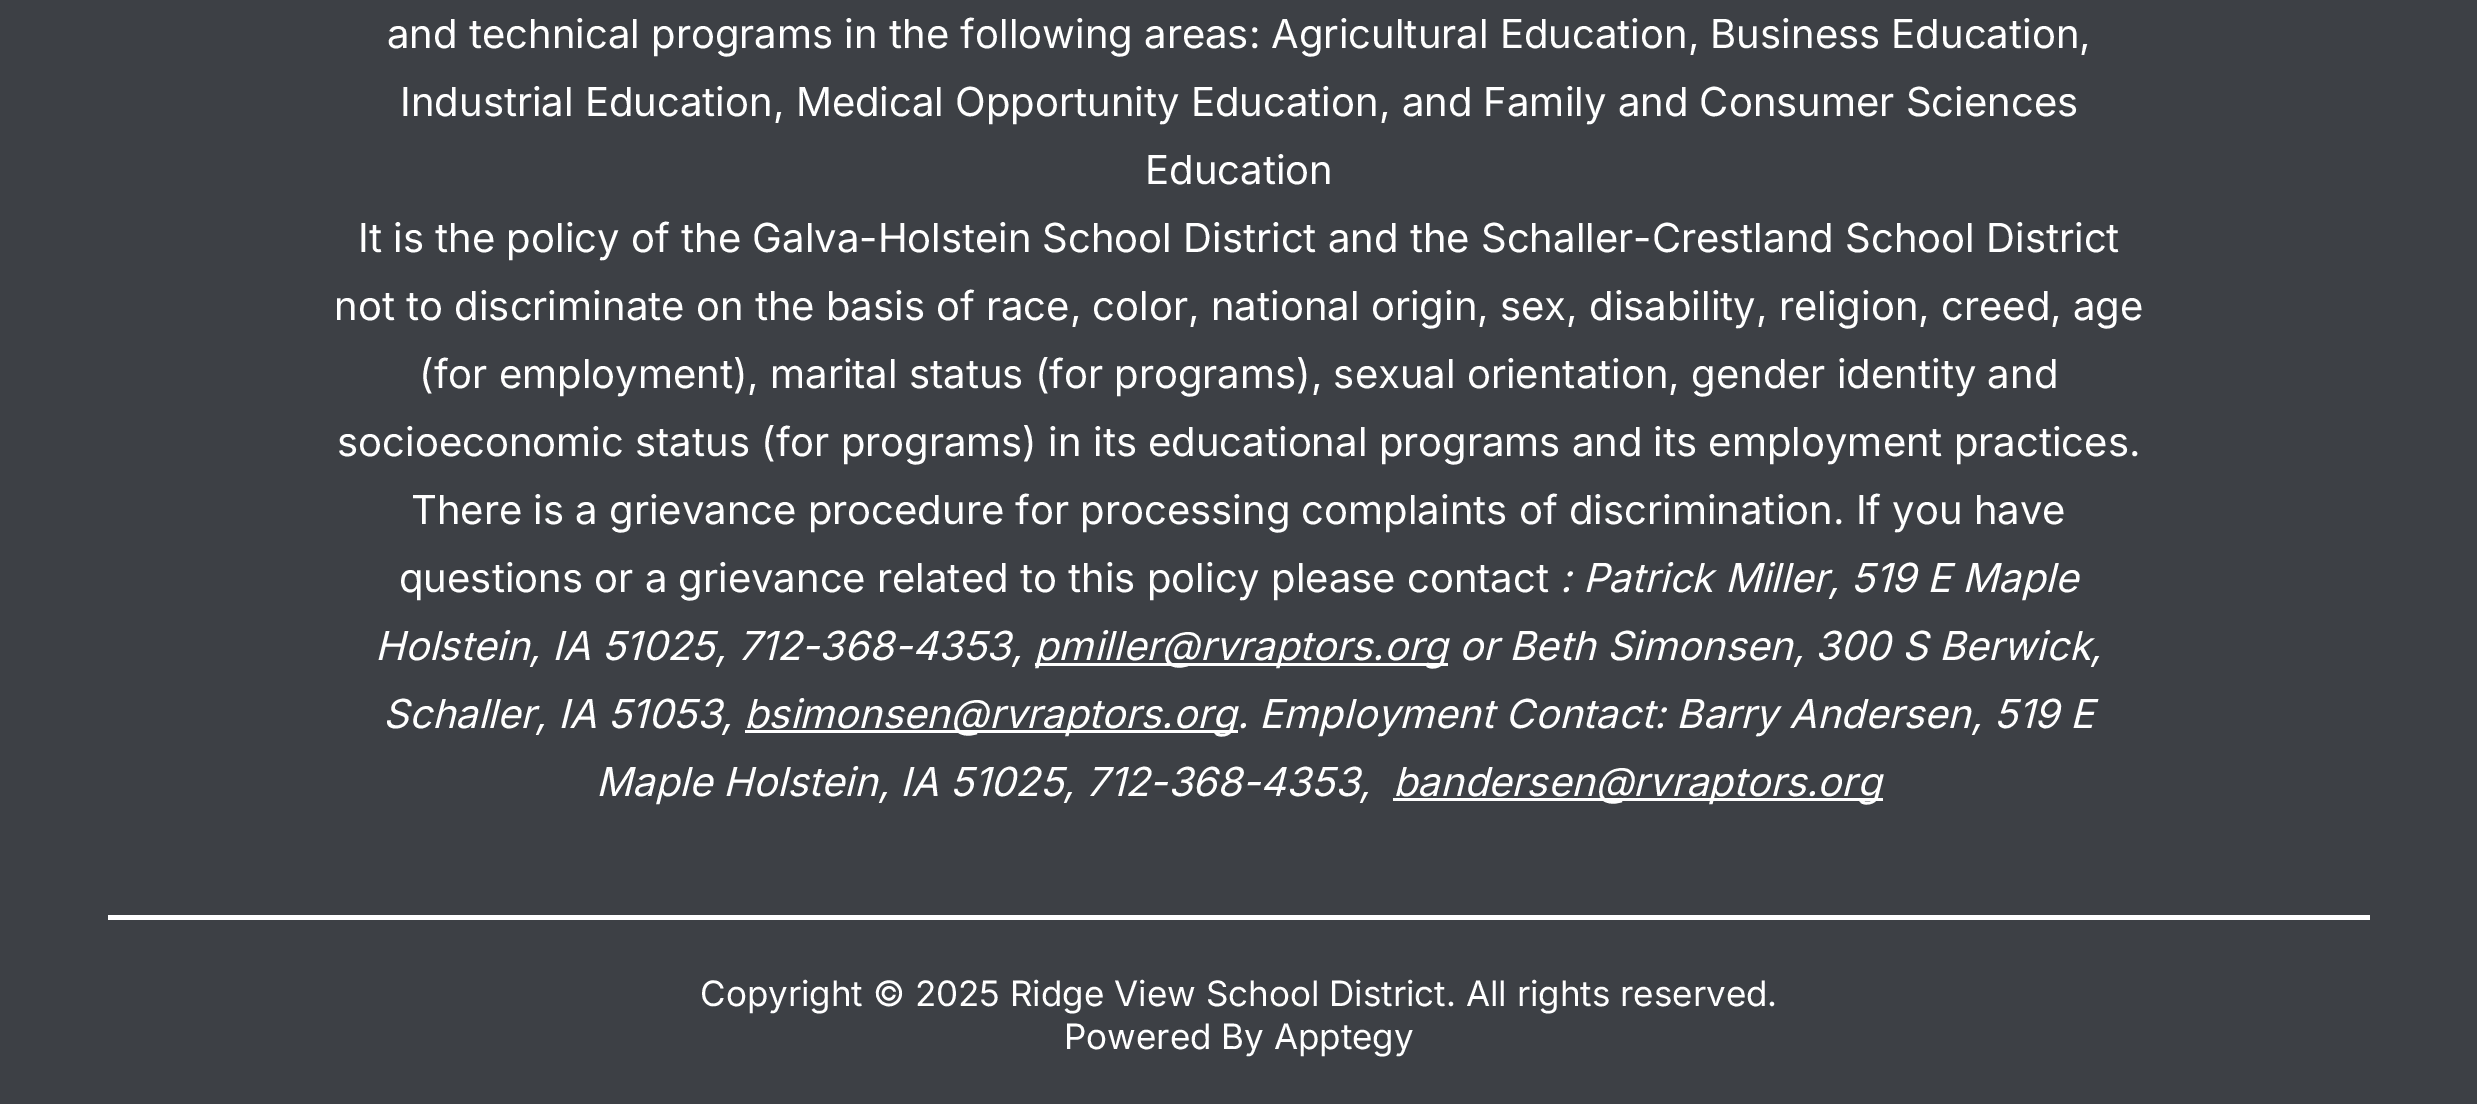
%!PS
<< /PageSize [2477 1104] >> setpagedevice
/rgb { dup -16 bitshift 255 div exch dup -8 bitshift 255 and 255 div exch 255 and 255 div setrgbcolor } def
/font { [ exch dup neg 0 0 3 -1 roll 0 0 ] selectfont } def
/text { moveto show } def
0 1104 translate 1 -1 scale
4 setmiterlimit
/s1 { /Inter-Regular 40 font 16#FFFFFF rgb } def
/s2 { /Inter-Italic 40 font 16#FFFFFF rgb } def
/s3 { /Inter-Regular 35 font 16#FFFFFF rgb } def
16#3D4045 rgb
0 0 2477 1104 rectfill
s1
(and technical programs in the following areas: Agricultural Education, Business Education,) 387 48 text
(Industrial Education, Medical Opportunity Education, and Family and Consumer Sciences) 400 116 text
(Education) 1145 184 text
(It is the policy of the Galva-Holstein) 358 252 text
(School District and the Schaller-Crestland School District) 1042 252 text
(not to discriminate on the basis of race, color, national origin, sex, disability, religion, creed, age) 334 320 text
(\(for employment\), marital status \(for programs\), sexual orientation, gender identity and) 419 388 text
(socioeconomic status \(for programs\) in its educational programs and its employment practices.) 337 456 text
(There is a grievance procedure for processing complaints of discrimination. If you have) 411 524 text
(questions or a grievance related to this policy please contact) 399 592 text
s2
(: Patrick Miller, 519 E Maple) 1560 592 text
(Holstein, IA 51025, 712-368-4353,) 375 660 text
1035 663 413 3 rectfill
(pmiller@rvraptors.org or Beth Simonsen, 300 S Berwick,) 1034 660 text
(Schaller, IA 51053,) 383 728 text
745 730 493 3 rectfill
(bsimonsen@rvraptors.org. Employment Contact: Barry Andersen, 519 E) 744 728 text
(Maple Holstein, IA 51025, 712-368-4353,) 596 796 text
1393 798 490 3 rectfill
(bandersen@rvraptors.org) 1393 796 text
108 915 2262 5 rectfill
s3
(Copyright © 2025 Ridge View School District. All rights reserved.) 700 1006 text
(Powered By Apptegy) 1064 1049 text
showpage
